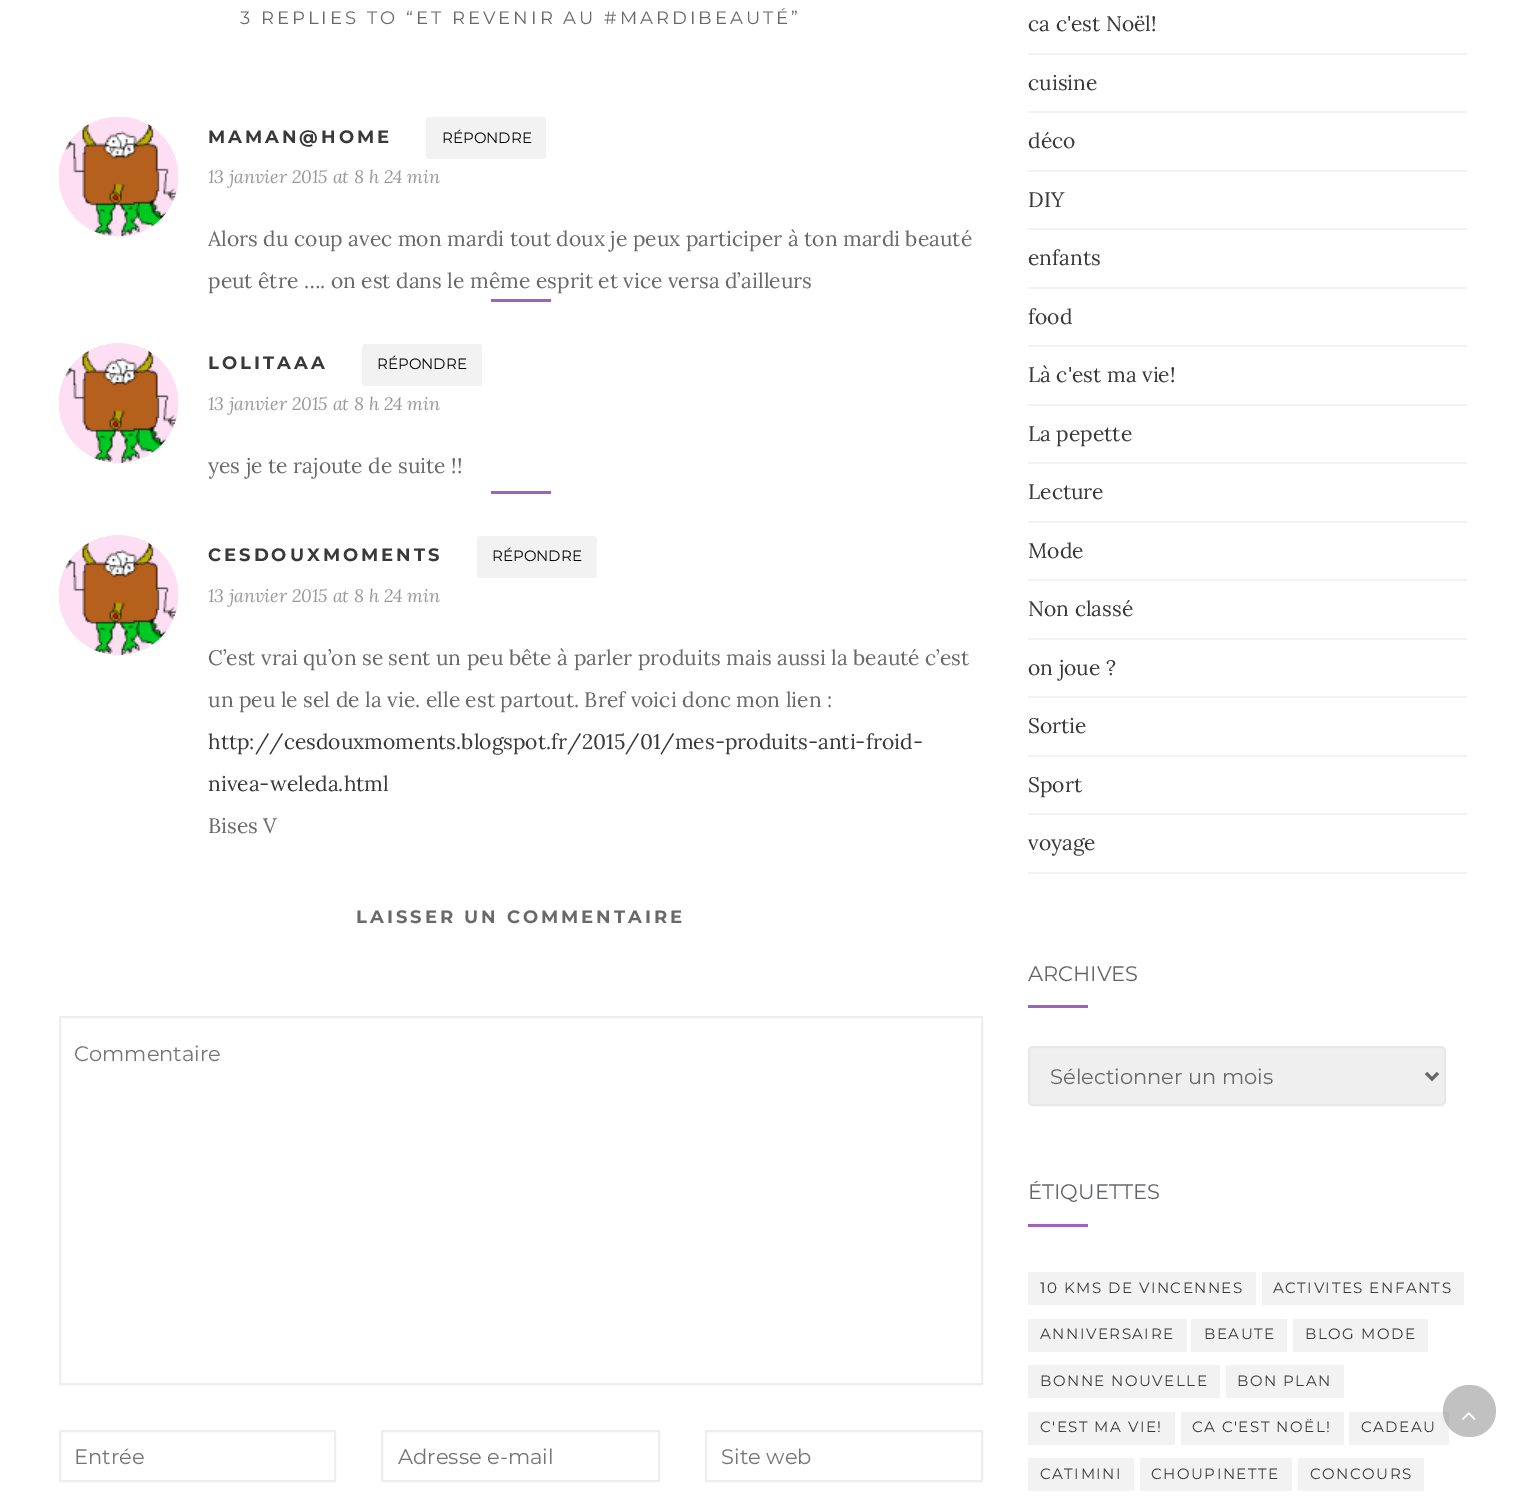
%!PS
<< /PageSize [1525 1496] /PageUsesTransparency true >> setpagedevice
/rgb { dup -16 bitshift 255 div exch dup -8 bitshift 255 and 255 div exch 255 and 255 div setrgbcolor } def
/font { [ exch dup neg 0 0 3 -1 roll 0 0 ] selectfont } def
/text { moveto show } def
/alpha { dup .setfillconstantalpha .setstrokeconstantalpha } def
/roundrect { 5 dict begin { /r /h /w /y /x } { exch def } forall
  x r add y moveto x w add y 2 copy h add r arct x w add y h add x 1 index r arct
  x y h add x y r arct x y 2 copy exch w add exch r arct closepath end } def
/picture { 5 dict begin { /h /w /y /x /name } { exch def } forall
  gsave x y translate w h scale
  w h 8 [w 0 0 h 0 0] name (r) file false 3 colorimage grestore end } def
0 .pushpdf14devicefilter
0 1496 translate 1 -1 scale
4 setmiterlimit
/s1 { /Montserrat-Regular 15 font 16#000000 rgb } def
/s2 { /Lora-Italic 18 font 16#999999 rgb } def
/s3 { /Lora-Regular 21 font 16#696969 rgb } def
/s4 { /Lora-Regular 21 font 16#393939 rgb } def
/s5 { /Montserrat-Regular 21 font 16#757575 rgb } def
/s6 { /Montserrat-Regular 21 font 16#636467 rgb } def
/s7 { /Montserrat-Regular 21 font 16#696969 rgb } def
16#FFFFFF rgb
0 0 1525 1496 rectfill
/Montserrat-Regular 18 font
16#696969 rgb
240 24 moveto 3 0 (3 REPLIES TO “ET REVENIR AU #MARDIBEAUTÉ”) ashow
(pic1.raw) 58 116 121 121 picture
/Montserrat-Bold 18 font
16#393939 rgb
208 143 moveto 3 0 (MAMAN@HOME) ashow
16#F2F2F2 rgb
426 117 120 42 3 roundrect fill
s1
(RÉPONDRE) 442 143 text
s2
(13 janvier 2015 at 8 h 24 min) 208 183 text
s3
(Alors du coup avec mon mardi tout doux je peux participer à ton mardi beauté) 208 246 text
(peut être …. on est dans le même esprit et vice versa d’ailleurs) 208 288 text
16#A161BF rgb
491 299 60 3 rectfill
(pic2.raw) 58 343 121 120 picture
/Montserrat-Bold 18 font
16#393939 rgb
208 369 moveto 3 0 (LOLITAAA) ashow
16#F2F2F2 rgb
362 344 120 42 3 roundrect fill
s1
(RÉPONDRE) 377 369 text
s2
(13 janvier 2015 at 8 h 24 min) 208 410 text
s3
(yes je te rajoute de suite !!) 208 473 text
16#A161BF rgb
491 491 60 3 rectfill
(pic2.raw) 58 535 121 120 picture
/Montserrat-Bold 18 font
16#393939 rgb
208 561 moveto 3 0 (CESDOUXMOMENTS) ashow
16#F2F2F2 rgb
477 536 120 42 3 roundrect fill
s1
(RÉPONDRE) 492 561 text
s2
(13 janvier 2015 at 8 h 24 min) 208 602 text
s3
(C’est vrai qu’on se sent un peu bête à parler produits mais aussi la beauté c’est) 208 665 text
(un peu le sel de la vie. elle est partout. Bref voici donc mon lien :) 208 707 text
s4
(http://cesdouxmoments.blogspot.fr/2015/01/mes-produits-anti-froid-) 208 749 text
(nivea-weleda.html) 208 791 text
s3
(Bises V) 208 833 text
/Montserrat-Bold 18 font
356 923 moveto 3 0 (LAISSER UN COMMENTAIRE) ashow
16#EEEEEE rgb
2 setlinewidth
60 1017 922 367 rectstroke
s5
(Commentaire) 74 1061 text
16#EEEEEE rgb
60 1431 275 50 rectstroke
s5
(Entrée) 74 1464 text
16#EEEEEE rgb
382 1431 277 50 rectstroke
s5
(Adresse e-mail) 398 1464 text
16#EEEEEE rgb
706 1431 276 50 rectstroke
s5
(Site web) 721 1464 text
16#F2F2F2 rgb
1028 53 439 2 rectfill
s4
(ca c'est Noël!) 1028 31 text
16#F2F2F2 rgb
1028 111 439 2 rectfill
s4
(cuisine) 1028 90 text
16#F2F2F2 rgb
1028 170 439 2 rectfill
s4
(déco) 1028 148 text
16#F2F2F2 rgb
1028 228 439 2 rectfill
s4
(DIY) 1028 207 text
16#F2F2F2 rgb
1028 287 439 2 rectfill
s4
(enfants) 1028 265 text
16#F2F2F2 rgb
1028 345 439 2 rectfill
s4
(food) 1028 324 text
16#F2F2F2 rgb
1028 404 439 2 rectfill
s4
(Là c'est ma vie!) 1028 382 text
16#F2F2F2 rgb
1028 462 439 2 rectfill
s4
(La pepette) 1028 441 text
16#F2F2F2 rgb
1028 521 439 2 rectfill
s4
(Lecture) 1028 499 text
16#F2F2F2 rgb
1028 579 439 2 rectfill
s4
(Mode) 1028 558 text
16#F2F2F2 rgb
1028 638 439 2 rectfill
s4
(Non classé) 1028 616 text
16#F2F2F2 rgb
1028 696 439 2 rectfill
s4
(on joue ?) 1028 675 text
16#F2F2F2 rgb
1028 755 439 2 rectfill
s4
(Sortie) 1028 733 text
16#F2F2F2 rgb
1028 813 439 2 rectfill
s4
(Sport) 1028 792 text
16#F2F2F2 rgb
1028 872 439 2 rectfill
s4
(voyage) 1028 850 text
s6
(ARCHIVES) 1028 981 text
16#A161BF rgb
1028 1005 60 3 rectfill
16#EFEFEF rgb
1029 1047 416 58 4 roundrect gsave fill grestore
16#E8E8E8 rgb
stroke
16#666666 rgb
3 setlinewidth
1426 1073 moveto 1432 1079 lineto 1438 1073 lineto stroke
s7
(Sélectionner un mois) 1050 1084 text
gsave
1028 1181 439 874 rectclip
s6
(ÉTIQUETTES) 1028 1199 text
grestore
16#A161BF rgb
1028 1224 60 3 rectfill
16#F2F2F2 rgb
1028 1272 228 33 rectfill
/Montserrat-Regular 15 font
16#393939 rgb
1040 1293 moveto 1.5 0 (10 KMS DE VINCENNES) ashow
16#F2F2F2 rgb
1262 1272 202 33 rectfill
16#393939 rgb
1273 1293 moveto 1.5 0 (ACTIVITES ENFANTS) ashow
16#F2F2F2 rgb
1028 1319 159 33 rectfill
16#393939 rgb
1040 1339 moveto 1.5 0 (ANNIVERSAIRE) ashow
16#F2F2F2 rgb
1191 1319 96 33 rectfill
16#393939 rgb
1204 1339 moveto 1.5 0 (BEAUTE) ashow
16#F2F2F2 rgb
1293 1319 135 33 rectfill
16#393939 rgb
1305 1339 moveto 1.5 0 (BLOG MODE) ashow
16#F2F2F2 rgb
1028 1365 192 33 rectfill
16#393939 rgb
1040 1386 moveto 1.5 0 (BONNE NOUVELLE) ashow
16#F2F2F2 rgb
1226 1365 118 33 rectfill
16#393939 rgb
1237 1386 moveto 1.5 0 (BON PLAN) ashow
16#F2F2F2 rgb
1028 1412 147 33 rectfill
16#393939 rgb
1040 1432 moveto 1.5 0 (C'EST MA VIE!) ashow
16#F2F2F2 rgb
1181 1412 163 33 rectfill
16#393939 rgb
1192 1432 moveto 1.5 0 (CA C'EST NOËL!) ashow
16#F2F2F2 rgb
1349 1412 100 33 rectfill
16#393939 rgb
1361 1432 moveto 1.5 0 (CADEAU) ashow
16#F2F2F2 rgb
1028 1458 106 33 rectfill
16#393939 rgb
1040 1479 moveto 1.5 0 (CATIMINI) ashow
16#F2F2F2 rgb
1140 1458 152 33 rectfill
16#393939 rgb
1151 1479 moveto 1.5 0 (CHOUPINETTE) ashow
16#F2F2F2 rgb
1298 1458 126 33 rectfill
16#393939 rgb
1310 1479 moveto 1.5 0 (CONCOURS) ashow
0.4 alpha
16#646464 rgb
1443 1385 53 52 26 roundrect fill
1 alpha
(pic3.raw) 1462 1412 14 8 picture
.poppdf14devicefilter showpage
